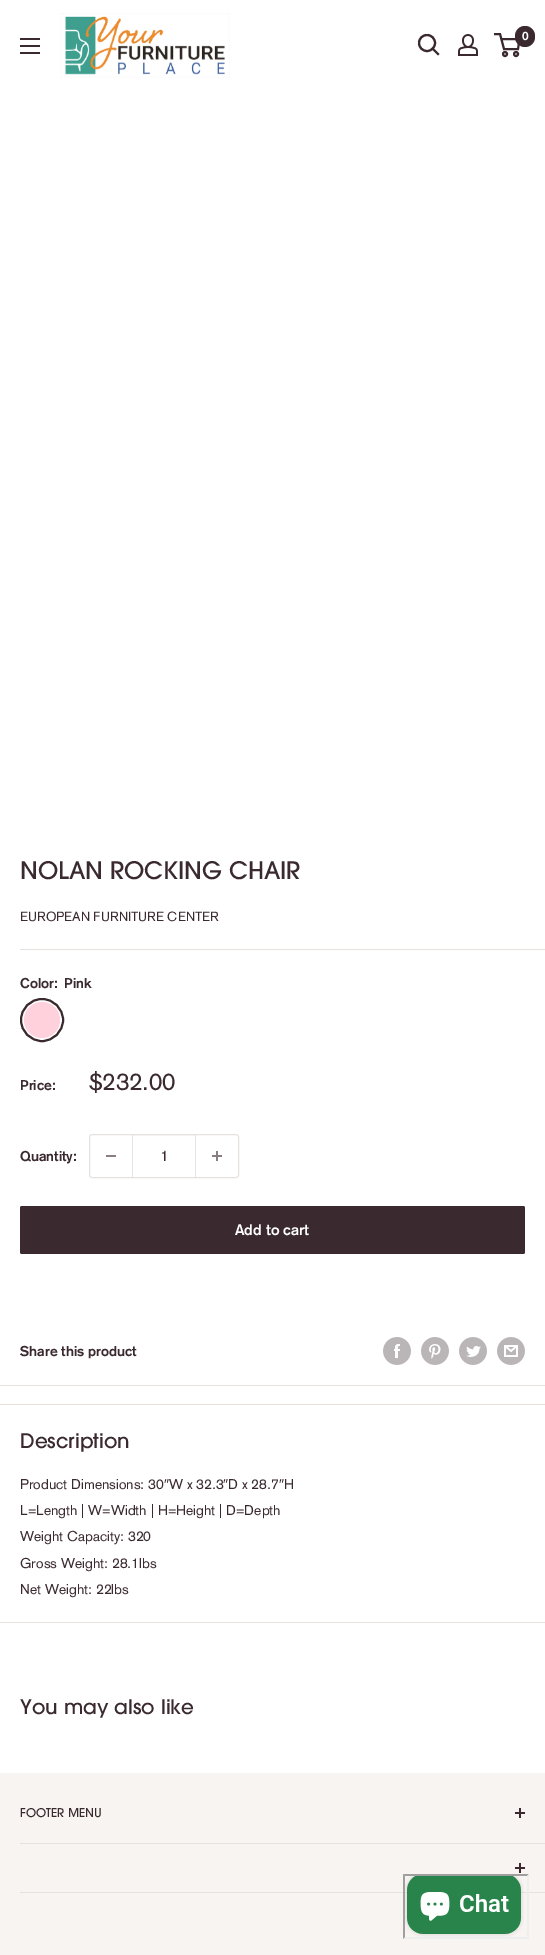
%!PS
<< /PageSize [545 1955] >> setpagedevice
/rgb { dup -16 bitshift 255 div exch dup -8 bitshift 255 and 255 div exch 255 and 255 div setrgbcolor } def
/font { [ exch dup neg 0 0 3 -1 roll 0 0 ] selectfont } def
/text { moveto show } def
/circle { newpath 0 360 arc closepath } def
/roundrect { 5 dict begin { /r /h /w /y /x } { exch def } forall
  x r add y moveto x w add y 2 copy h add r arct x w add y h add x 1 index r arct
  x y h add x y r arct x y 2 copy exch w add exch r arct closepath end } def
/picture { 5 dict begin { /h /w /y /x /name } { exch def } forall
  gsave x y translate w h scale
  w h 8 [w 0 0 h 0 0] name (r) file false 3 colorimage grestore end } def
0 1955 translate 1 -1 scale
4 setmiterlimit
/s1 { /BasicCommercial-Bold 12 font 16#FFFFFF rgb } def
/s2 { /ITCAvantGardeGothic-Medium 24 font 16#3A2A2F rgb } def
/s3 { /BasicCommercial-Regular 13 font 16#3A2A2F rgb } def
/s4 { /BasicCommercial-Bold 14 font 16#3A2A2F rgb } def
/s5 { /BasicCommercial-Regular 24 font 16#3A2A2F rgb } def
/s6 { /BasicCommercial-Regular 15 font 16#3A2A2F rgb } def
/s7 { /BasicCommercial-Bold 15 font 16#FFFFFF rgb } def
/s8 { /ITCAvantGardeGothic-Medium 20 font 16#3A2A2F rgb } def
/s9 { /BasicCommercial-Regular 14 font 16#3A2A2F rgb } def
/s10 { /LiberationSans-Regular 14 font 16#3A2A2F rgb } def
/s11 { /ITCAvantGardeGothic-Medium 12 font 16#3A2A2F rgb } def
16#FFFFFF rgb
0 0 545 1955 rectfill
(pic1.raw) 60 13 170 65 picture
16#3A2A2F rgb
2.1 setlinewidth
2 setlinecap
438 54 moveto 432.5 48.5 lineto stroke
0 setlinecap
427 43 8 circle stroke
(pic2.raw) 458 34 20 22 picture
2 setlinewidth
505 54 2 circle stroke
516 54 2 circle stroke
501.5 39 moveto 519.5 39 lineto 518 49 lineto 504 49 lineto 500 34 lineto 494 34 lineto stroke
515 26 20 21 10 roundrect fill
s1
(0) 522 40 text
(pic3.raw) 20 38 20 16 picture
16#E7E2DE rgb
0 1385 545 1 rectfill
s2
(NOLAN ROCKING CHAIR) 20 879 text
s3
(EUROPEAN FURNITURE CENTER) 20 921 text
16#E7E2DE rgb
20 949 525 1 rectfill
s4
(Color:) 20 988 text
(Pink) 64 988 text
16#FFD1DC rgb
42 1020 18 circle fill
16#3A2A2F rgb
42 1020 21 circle stroke
(Price:) 20 1090 text
s5
($232.00) 89 1090 text
s4
(Quantity:) 20 1161 text
16#E7E2DE rgb
1 setlinewidth
89.5 1134.5 149 43 2.5 roundrect stroke
16#897F82 rgb
106 1155 10 2 rectfill
16#F5F3F2 rgb
133 1135 62 1 rectfill
16#E7E2DE rgb
195 1135 1 42 rectfill
132 1135 1 42 rectfill
s6
(1) 160 1161 text
(pic4.raw) 212 1151 10 10 picture
20 1206 505 48 2 roundrect fill
s7
(Add to cart) 235 1235 text
s4
(Share this product) 20 1356 text
(pic5.raw) 383 1337 28 28 picture
(pic6.raw) 421 1337 28 28 picture
(pic7.raw) 459 1337 28 28 picture
(pic8.raw) 497 1337 28 28 picture
16#E7E2DE rgb
0 1404 545 1 rectfill
0 1622 545 1 rectfill
s8
(Description) 20 1448 text
s9
(Product Dimensions: 30) 20 1489 text
s10
(″) 164 1489 text
s9
(W x 32.3) 169 1489 text
s10
(″) 223 1489 text
s9
(D x 28.7) 228 1489 text
s10
(″) 279 1489 text
s9
(H) 284 1489 text
(L=Length | W=Width | H=Height | D=Depth) 20 1515 text
(Weight Capacity: 320) 20 1541 text
(Gross Weight: 28.1lbs) 20 1568 text
(Net Weight: 22lbs) 20 1594 text
s8
(You may also like) 20 1714 text
16#F7F4F2 rgb
0 1773 545 182 rectfill
16#E7E2DE rgb
20 1843 525 1 rectfill
s11
(FOOTER MENU) 20 1817 text
519 1808 2 10 rectfill
515 1812 10 2 rectfill
16#E7E2DE rgb
20 1892 525 1 rectfill
16#3A2A2F rgb
519 1863 2 10 rectfill
515 1867 10 2 rectfill
16#9F9F9F rgb
403 1874 moveto 529 1874 lineto 527 1876 lineto 405 1876 lineto closepath fill
16#EEEEEE rgb
529 1874 moveto 529 1939 lineto 527 1937 lineto 527 1876 lineto closepath fill
529 1939 moveto 403 1939 lineto 405 1937 lineto 527 1937 lineto closepath fill
16#9F9F9F rgb
403 1939 moveto 403 1874 lineto 405 1876 lineto 405 1937 lineto closepath fill
(pic9.raw) 405 1876 119 61 picture
showpage
